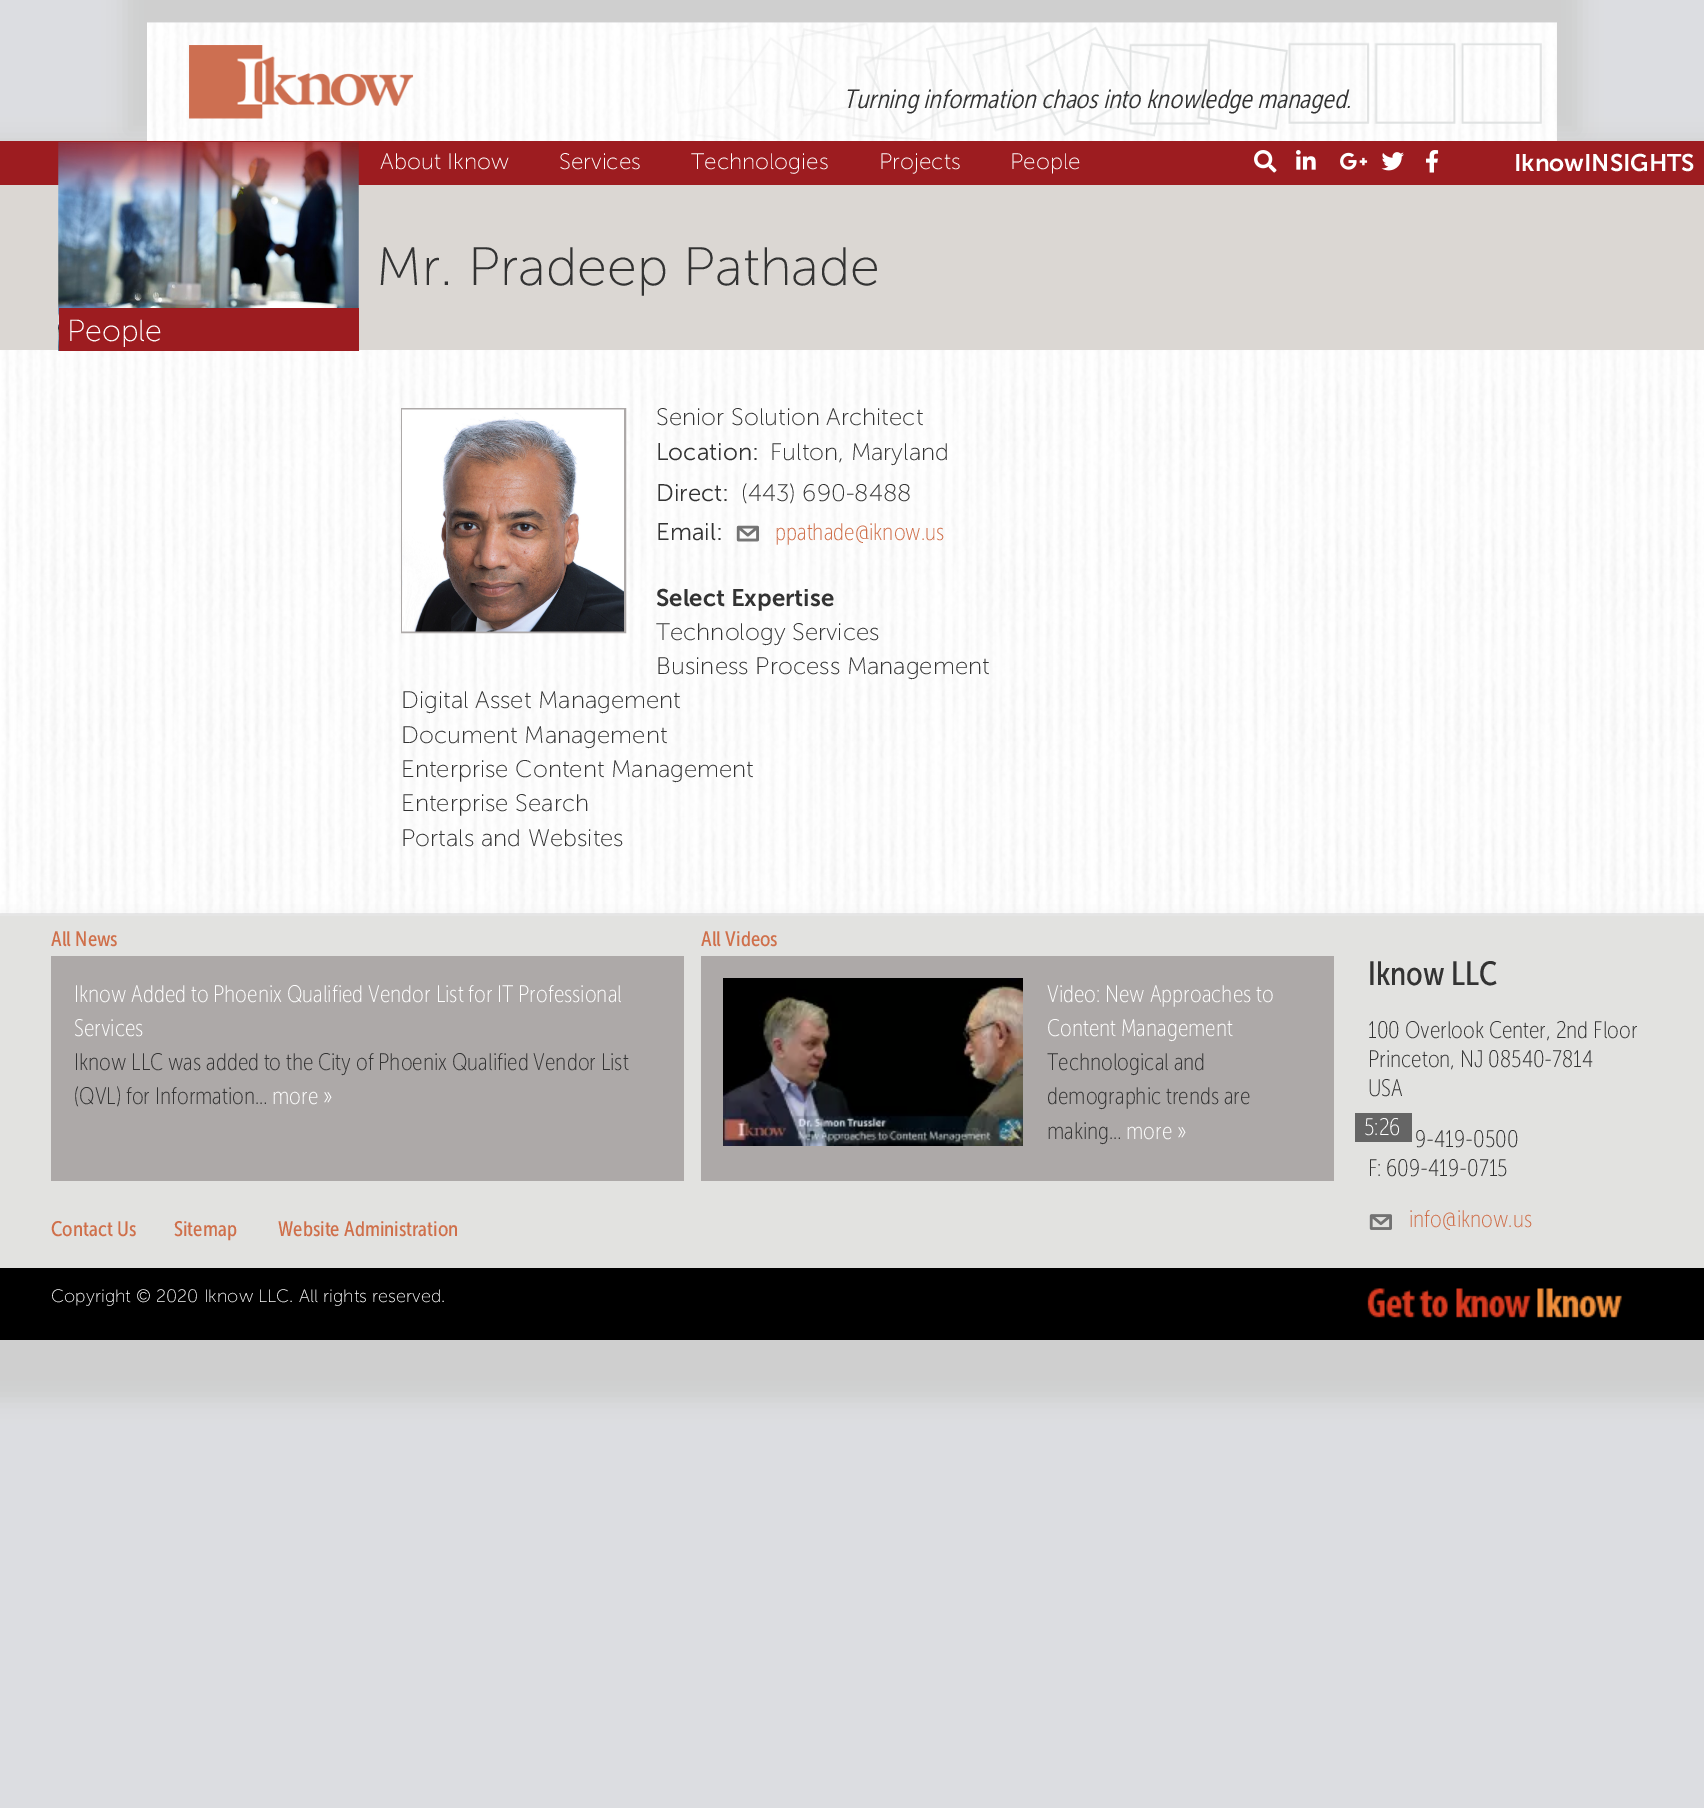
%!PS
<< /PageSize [1704 1808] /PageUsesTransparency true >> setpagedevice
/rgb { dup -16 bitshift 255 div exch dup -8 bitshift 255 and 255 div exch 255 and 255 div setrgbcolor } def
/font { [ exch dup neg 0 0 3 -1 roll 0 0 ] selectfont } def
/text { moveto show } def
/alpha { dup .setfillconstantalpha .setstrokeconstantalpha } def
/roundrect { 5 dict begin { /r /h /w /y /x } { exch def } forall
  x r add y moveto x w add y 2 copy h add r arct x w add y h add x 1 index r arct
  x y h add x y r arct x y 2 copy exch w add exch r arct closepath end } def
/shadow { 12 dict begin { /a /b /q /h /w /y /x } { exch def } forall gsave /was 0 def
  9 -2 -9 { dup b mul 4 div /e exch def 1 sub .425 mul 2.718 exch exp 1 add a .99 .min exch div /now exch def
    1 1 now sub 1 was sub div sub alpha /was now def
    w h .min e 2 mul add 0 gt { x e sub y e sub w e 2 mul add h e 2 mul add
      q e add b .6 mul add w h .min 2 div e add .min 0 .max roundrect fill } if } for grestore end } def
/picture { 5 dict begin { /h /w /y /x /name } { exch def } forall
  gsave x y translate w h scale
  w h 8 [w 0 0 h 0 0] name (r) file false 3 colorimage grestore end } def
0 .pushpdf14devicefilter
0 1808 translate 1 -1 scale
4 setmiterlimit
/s1 { /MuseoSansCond-LightItalic 26.4 font 16#333333 rgb } def
/s2 { /MuseoSans-ExtraLight 22.5 font 16#FFFFFF rgb } def
/s3 { /MuseoSans-SemiBold 24 font 16#FFFFFF rgb } def
/s4 { /MuseoSans-ExtraLight 54 font 16#333333 rgb } def
/s5 { /MuseoSans-ExtraLight 30.5 font 16#FFFFFF rgb } def
/s6 { /MuseoSans-ExtraLight 24 font 16#333333 rgb } def
/s7 { /MuseoSans-Light 24 font 16#333333 rgb } def
/s8 { /MuseoSansCond-ExtraLight 24 font 16#CF6F4A rgb } def
/s9 { /MuseoSans-SemiBold 24 font 16#333333 rgb } def
/s10 { /MuseoSansCond-Regular 21 font 16#CF6F4A rgb } def
/s11 { /MuseoSansCond-ExtraLight 24 font 16#FFFFFF rgb } def
/s12 { /MuseoSansCond-ExtraLight 24 font 16#333333 rgb } def
/s13 { /MuseoSansCond-Regular 33.5 font 16#333333 rgb } def
/s14 { /MuseoSans-ExtraLight 18 font 16#FFFFFF rgb } def
16#DCDDE1 rgb
0 0 1704 1808 rectfill
16#CECECE rgb
125 -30 1455 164 0 11 1 shadow
-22 141 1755 818 0 11 1 shadow
(pic1.raw) 147 22 1410 119 picture
(pic2.raw) 189 45 225 74 picture
(pic3.raw) 669 23 873 117 picture
s1
(Turning information chaos into knowledge managed.) 843 108 text
(pic4.raw) 0 350 1704 564 picture
16#9D1C20 rgb
0 141 1704 44 rectfill
s2
(About Iknow) 380 169 text
(Services) 559 169 text
(Technologies) 691 169 text
(Projects) 879 169 text
(People) 1010 169 text
(pic5.raw) 1254 150 23 23 picture
(pic6.raw) 1296 150 20 20 picture
(pic7.raw) 1340 152 28 18 picture
(pic8.raw) 1381 152 23 19 picture
(pic9.raw) 1426 150 13 23 picture
s3
(IknowINSIGHTS) 1514 171 text
16#DBD7D3 rgb
0 185 1704 165 rectfill
s4
(Mr. Pradeep Pathade) 376 285 text
(pic10.raw) 58 142 301 209 picture
(pic11.raw) 58 142 301 209 picture
16#9D1C20 rgb
59 308 300 43 rectfill
s5
(People) 67 341 text
16#ADA9A8 rgb
2 setlinewidth
402 409 223 223 rectstroke
(pic12.raw) 402 409 222 223 picture
s6
(Senior Solution Architect) 656 425 text
s7
(Location:) 656 460 text
s6
(Fulton, Maryland) 770 460 text
s7
(Direct:) 656 501 text
s6
(\(443\) 690-8488) 741 501 text
s7
(Email:) 656 540 text
(pic13.raw) 736 525 23 17 picture
s8
(ppathade@iknow.us) 775 540 text
s9
(Select Expertise) 656 606 text
s6
(Technology Services) 656 640 text
(Business Process Management) 656 674 text
(Digital Asset Management) 401 708 text
(Document Management) 401 743 text
(Enterprise Content Management) 401 777 text
(Enterprise Search) 401 811 text
(Portals and Websites) 401 846 text
16#CECECE rgb
-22 929 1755 471 0 11 1 shadow
16#E2E2E0 rgb
0 916 1704 352 rectfill
16#E5E5E5 rgb
0 914 1704 2 rectfill
s10
(All News) 51 946 text
16#ADA9A8 rgb
51 956 633 225 rectfill
s11
(Iknow Added to Phoenix Qualified Vendor List for IT Professional) 74 1002 text
(Services) 74 1036 text
s12
(Iknow LLC was added to the City of Phoenix Qualified Vendor List) 74 1070 text
(\(QVL\) for Information…) 74 1104 text
s11
(more ») 272 1104 text
s10
(All Videos) 701 946 text
16#ADA9A8 rgb
701 956 633 225 rectfill
(pic14.raw) 723 978 300 168 picture
s11
(Video: New Approaches to) 1047 1002 text
(Content Management) 1047 1036 text
s12
(Technological and) 1047 1070 text
(demographic trends are) 1047 1104 text
(making…) 1047 1139 text
s11
(more ») 1126 1139 text
0.7 alpha
16#303031 rgb
1355 1113 57 29 rectfill
1 alpha
s11
(5:26) 1364 1135 text
s13
(Iknow LLC) 1368 985 text
s12
(100 Overlook Center, 2nd Floor) 1368 1038 text
(Princeton, NJ 08540-7814) 1368 1067 text
(USA) 1368 1096 text
(9-419-0500) 1415 1147 text
(F: 609-419-0715) 1368 1176 text
(pic15.raw) 1369 1214 23 16 picture
s8
(info@iknow.us) 1409 1227 text
s10
(Contact Us) 51 1236 text
(Sitemap) 174 1236 text
(Website Administration) 278 1236 text
16#000000 rgb
0 1268 1704 72 rectfill
s14
(Copyright © 2020 Iknow LLC. All rights reserved.) 51 1302 text
(pic16.raw) 1367 1288 255 30 picture
.poppdf14devicefilter showpage
